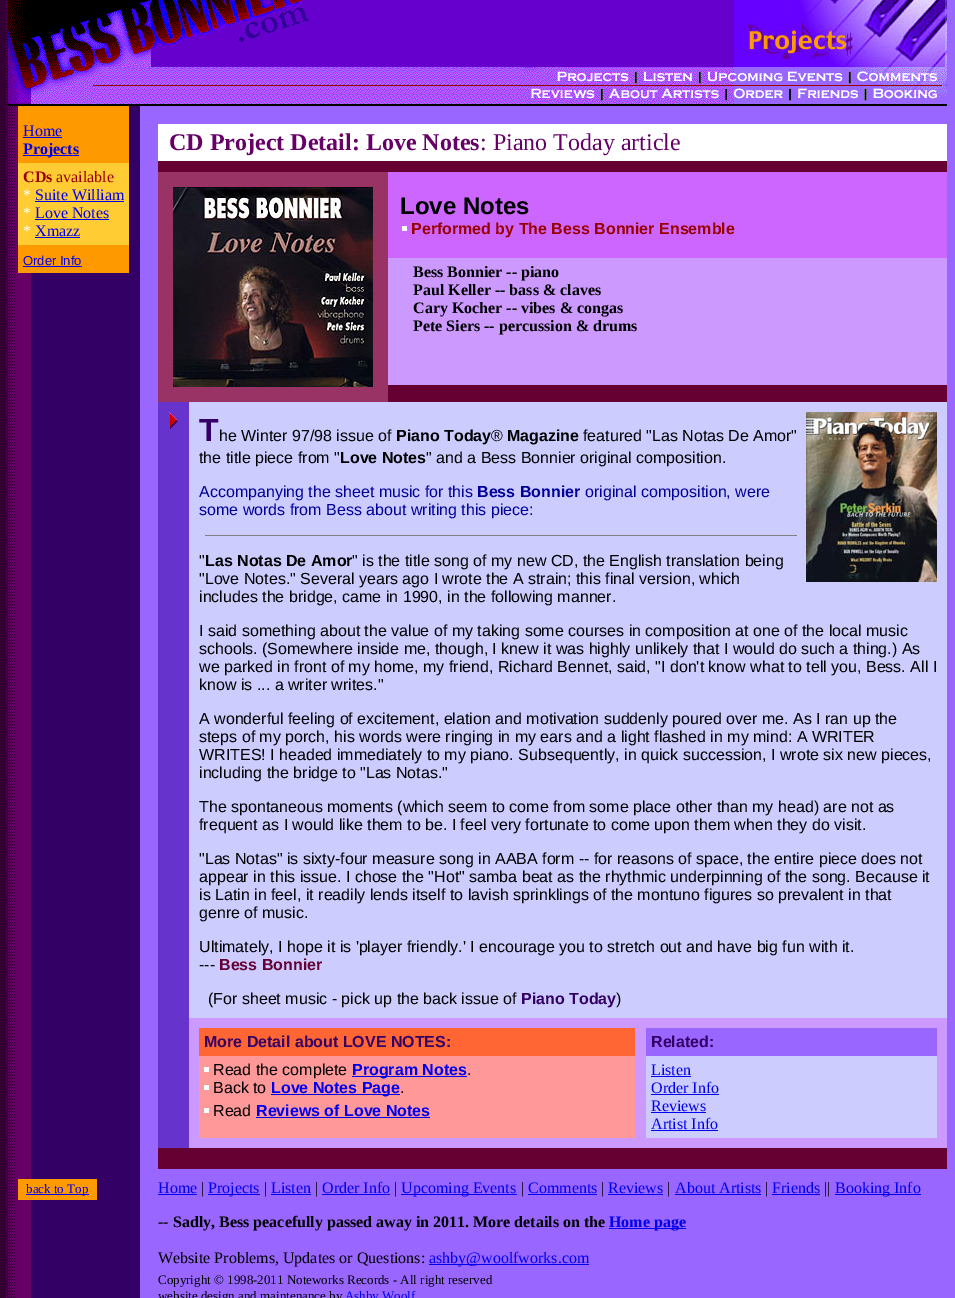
%!PS
<< /PageSize [955 1298] >> setpagedevice
/rgb { dup -16 bitshift 255 div exch dup -8 bitshift 255 and 255 div exch 255 and 255 div setrgbcolor } def
/font { [ exch dup neg 0 0 3 -1 roll 0 0 ] selectfont } def
/text { moveto show } def
/picture { 5 dict begin { /h /w /y /x /name } { exch def } forall
  gsave x y translate w h scale
  w h 8 [w 0 0 h 0 0] name (r) file false 3 colorimage grestore end } def
0 1298 translate 1 -1 scale
4 setmiterlimit
/s1 { /LiberationSerif-Regular 16 font 16#0000EE rgb } def
/s2 { /LiberationSerif-Bold 16 font 16#0000EE rgb } def
/s3 { /LiberationSerif-Bold 16 font 16#990000 rgb } def
/s4 { /LiberationSerif-Regular 16 font 16#990000 rgb } def
/s5 { /LiberationSerif-Regular 16 font 16#FFFFFF rgb } def
/s6 { /LiberationSans-Regular 13 font 16#0000EE rgb } def
/s7 { /LiberationSerif-Bold 24 font 16#660066 rgb } def
/s8 { /LiberationSerif-Regular 24 font 16#660066 rgb } def
/s9 { /LiberationSans-Bold 24 font 16#000000 rgb } def
/s10 { /LiberationSans-Bold 16 font 16#990000 rgb } def
/s11 { /LiberationSerif-Bold 16 font 16#000000 rgb } def
/s12 { /LiberationSans-Bold 32 font 16#330066 rgb } def
/s13 { /LiberationSans-Regular 16 font 16#000000 rgb } def
/s14 { /LiberationSans-Bold 16 font 16#000000 rgb } def
/s15 { /LiberationSans-Regular 16 font 16#000099 rgb } def
/s16 { /LiberationSans-Bold 16 font 16#000099 rgb } def
/s17 { /LiberationSans-Bold 16 font 16#660033 rgb } def
/s18 { /LiberationSans-Bold 16 font 16#330066 rgb } def
/s19 { /LiberationSans-Bold 16 font 16#0000EE rgb } def
/s20 { /LiberationSerif-Regular 13 font 16#0000EE rgb } def
/s21 { /LiberationSerif-Regular 16 font 16#000000 rgb } def
/s22 { /LiberationSerif-Regular 13 font 16#000000 rgb } def
16#9966FF rgb
0 0 955 1298 rectfill
(pic1.raw) 0 0 140 1298 picture
(pic2.raw) 8 0 92 67 picture
(pic3.raw) 100 0 211 67 picture
16#6600CC rgb
311 0 423 67 rectfill
(pic4.raw) 734 0 211 67 picture
(pic5.raw) 945 0 2 67 picture
(pic6.raw) 8 67 92 18 picture
(pic7.raw) 100 67 423 18 picture
(pic8.raw) 523 67 110 18 picture
(pic9.raw) 633 67 65 18 picture
(pic10.raw) 698 67 145 18 picture
(pic11.raw) 848 67 99 18 picture
(pic12.raw) 8 85 92 19 picture
(pic13.raw) 100 85 423 19 picture
(pic14.raw) 523 85 76 19 picture
(pic15.raw) 599 85 125 19 picture
(pic16.raw) 724 85 63 19 picture
(pic17.raw) 787 85 76 16 picture
(pic18.raw) 863 85 84 16 picture
16#000000 rgb
8 104 939 2 rectfill
16#FF9900 rgb
18 106 111 57 rectfill
s1
(Home) 23 136 text
23 137 39 1 rectfill
23 155 56 1 rectfill
s2
(Projects) 23 154 text
16#FFCC33 rgb
18 163 111 82 rectfill
s3
(CDs) 23 182 text
s4
(available) 56 182 text
s5
(*) 23 200 text
s1
(Suite William) 35 200 text
35 201 89 1 rectfill
s5
(*) 23 218 text
s1
(Love Notes) 35 218 text
35 219 74 1 rectfill
s5
(*) 23 236 text
s1
(Xmazz) 35 236 text
35 237 45 1 rectfill
16#FF9900 rgb
18 245 111 28 rectfill
s6
(Order Info) 23 265 text
23 266 59 1 rectfill
16#CC99FF rgb
388 258 559 127 rectfill
16#FFFFFF rgb
158 124 789 37 rectfill
s7
(CD Project Detail: Love Notes) 169 150 text
s8
(: Piano Today article) 480 150 text
16#660033 rgb
158 161 789 11 rectfill
16#993366 rgb
158 172 230 230 rectfill
(pic19.raw) 173 187 200 200 picture
16#CC66FF rgb
388 172 559 86 rectfill
s9
(Love Notes) 400 214 text
s10
(Performed by The Bess Bonnier Ensemble) 411 234 text
16#FFFFFF rgb
402 226 5 5 rectfill
s11
(Bess Bonnier -- piano) 413 277 text
(Paul Keller -- bass & claves) 413 295 text
(Cary Kocher -- vibes & congas) 413 313 text
(Pete Siers -- percussion & drums) 413 331 text
16#660033 rgb
388 385 559 17 rectfill
16#CC99FF rgb
189 1018 758 130 rectfill
16#6633CC rgb
158 402 31 746 rectfill
(pic20.raw) 169 412 9 17 picture
16#CCCCFF rgb
189 402 758 616 rectfill
s12
(T) 199 441 text
s13
(he Winter 97/98 issue of) 219 441 text
s14
(Piano Today) 396 441 text
s13
(®) 491 441 text
s14
(Magazine) 507 441 text
s13
(featured "Las Notas De Amor") 583 441 text
(pic21.raw) 806 412 131 170 picture
(the title piece from ") 199 463 text
s14
(Love Notes) 340 463 text
s13
(" and a Bess Bonnier original composition.) 426 463 text
s15
(Accompanying the sheet music for this) 199 497 text
s16
(Bess Bonnier) 477 497 text
s15
(original composition, were) 585 497 text
(some words from Bess about writing this piece:) 199 515 text
16#808080 rgb
205 535 592 1 rectfill
s13
(") 199 566 text
s14
(Las Notas De Amor) 205 566 text
s13
(" is the title song of my new CD, the English translation being) 352 566 text
("Love Notes." Several years ago I wrote the A strain; this final version, which) 199 584 text
(includes the bridge, came in 1990, in the following manner.) 199 602 text
(I said something about the value of my taking some courses in composition at one of the local music) 199 636 text
(schools. \(Somewhere inside me, though, I knew it was highly unlikely that I would do such a thing.\) As) 199 654 text
(we parked in front of my home, my friend, Richard Bennet, said, "I don't know what to tell you, Bess. All I) 199 672 text
(know is ... a writer writes.") 199 690 text
(A wonderful feeling of excitement, elation and motivation suddenly poured over me. As I ran up the) 199 724 text
(steps of my porch, his words were ringing in my ears and a light flashed in my mind: A WRITER) 199 742 text
(WRITES! I headed immediately to my piano. Subsequently, in quick succession, I wrote six new pieces,) 199 760 text
(including the bridge to "Las Notas.") 199 778 text
(The spontaneous moments \(which seem to come from some place other than my head\) are not as) 199 812 text
(frequent as I would like them to be. I feel very fortunate to come upon them when they do visit.) 199 830 text
("Las Notas" is sixty-four measure song in AABA form -- for reasons of space, the entire piece does not) 199 864 text
(appear in this issue. I chose the "Hot" samba beat as the rhythmic underpinning of the song. Because it) 199 882 text
(is Latin in feel, it readily lends itself to lavish sprinklings of the montuno figures so prevalent in that) 199 900 text
(genre of music.) 199 918 text
(Ultimately, I hope it is 'player friendly.' I encourage you to stretch out and have big fun with it.) 199 952 text
(---) 199 970 text
s17
(Bess Bonnier) 219 970 text
s13
(\(For sheet music - pick up the back issue of) 208 1004 text
s18
(Piano Today) 521 1004 text
s13
(\)) 616 1004 text
16#FF6633 rgb
199 1028 436 28 rectfill
s18
(More Detail about LOVE NOTES:) 204 1047 text
16#9966FF rgb
646 1028 291 28 rectfill
s18
(Related:) 651 1047 text
16#FF9999 rgb
199 1056 436 82 rectfill
s13
(Read the complete) 213 1075 text
16#FFFFFF rgb
204 1067 5 5 rectfill
16#0000EE rgb
352 1076 115 1 rectfill
s19
(Program Notes) 352 1075 text
s13
(.) 467 1075 text
(Back to) 213 1093 text
16#FFFFFF rgb
204 1085 5 5 rectfill
16#0000EE rgb
271 1094 129 1 rectfill
s19
(Love Notes Page) 271 1093 text
s13
(.) 400 1093 text
(Read) 213 1116 text
16#FFFFFF rgb
204 1108 5 5 rectfill
s19
(Reviews of Love Notes) 256 1116 text
256 1117 174 1 rectfill
16#CCCCFF rgb
646 1056 291 82 rectfill
s1
(Listen) 651 1075 text
651 1076 40 1 rectfill
(Order Info) 651 1093 text
651 1094 68 1 rectfill
(Reviews) 651 1111 text
651 1112 55 1 rectfill
(Artist Info) 651 1129 text
651 1130 67 1 rectfill
16#660033 rgb
158 1148 789 21 rectfill
16#FF9900 rgb
18 1179 79 21 rectfill
16#0000EE rgb
26 1194 63 1 rectfill
s20
(back to Top) 26 1193 text
s1
(Home) 158 1193 text
158 1194 39 1 rectfill
s21
(|) 201 1193 text
16#0000EE rgb
208 1194 52 1 rectfill
(Projects) 208 1193 text
s21
(|) 264 1193 text
s1
(Listen) 271 1193 text
271 1194 40 1 rectfill
s21
(|) 315 1193 text
s1
(Order Info) 322 1193 text
322 1194 68 1 rectfill
s21
(|) 394 1193 text
16#0000EE rgb
401 1194 116 1 rectfill
(Upcoming Events) 401 1193 text
s21
(|) 521 1193 text
s1
(Comments) 528 1193 text
528 1194 69 1 rectfill
s21
(|) 601 1193 text
s1
(Reviews) 608 1193 text
608 1194 55 1 rectfill
s21
(|) 667 1193 text
s1
(About Artists) 675 1193 text
675 1194 86 1 rectfill
s21
(|) 765 1193 text
s1
(Friends) 772 1193 text
772 1194 48 1 rectfill
s21
(||) 824 1193 text
16#0000EE rgb
835 1194 86 1 rectfill
(Booking Info) 835 1193 text
s21
(--) 158 1227 text
s11
(Sadly, Bess peacefully passed away in 2011. More details on the) 173 1227 text
16#0000EE rgb
609 1228 77 1 rectfill
(Home page) 609 1227 text
s21
(Website Problems, Updates or Questions:) 158 1263 text
16#0000EE rgb
429 1264 160 1 rectfill
(ashby@woolfworks.com) 429 1263 text
s22
(Copyright © 1998-2011 Noteworks Records - All right reserved) 158 1284 text
(website design and maintenance by) 158 1300 text
s20
(Ashby Woolf) 345 1300 text
showpage
